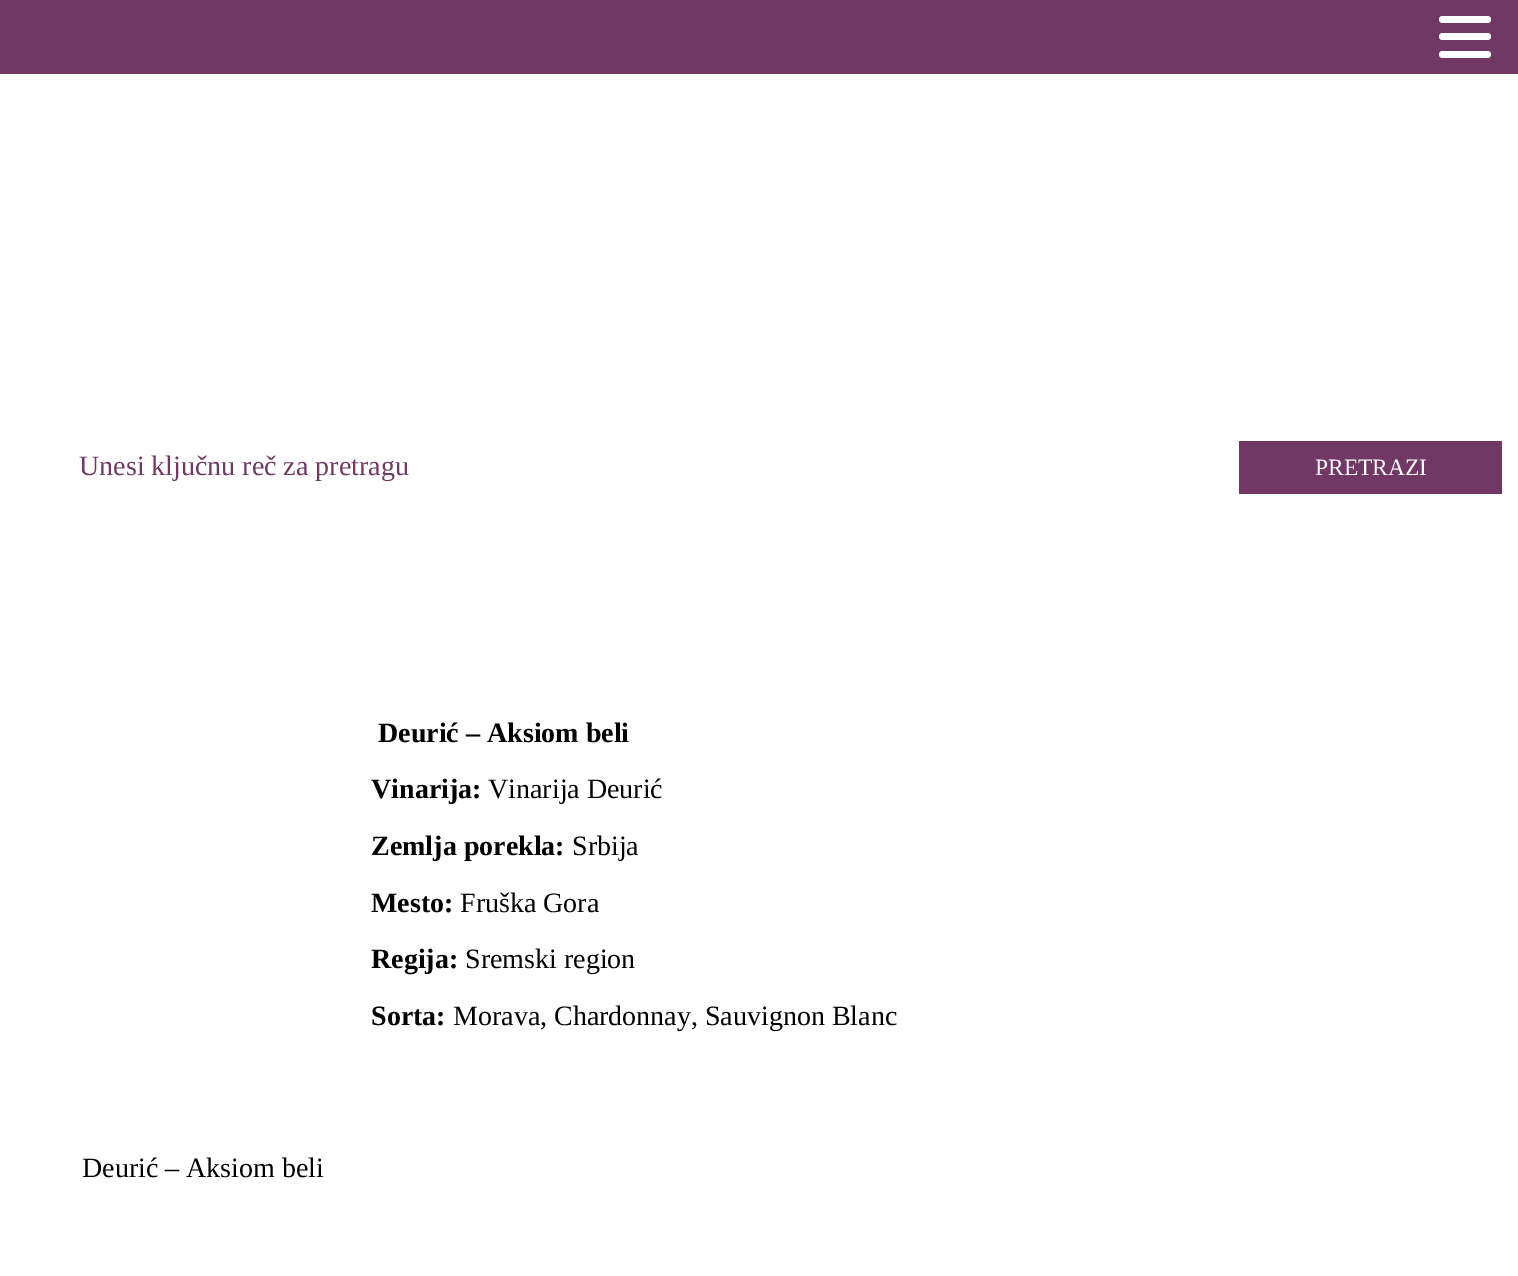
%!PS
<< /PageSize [1518 1276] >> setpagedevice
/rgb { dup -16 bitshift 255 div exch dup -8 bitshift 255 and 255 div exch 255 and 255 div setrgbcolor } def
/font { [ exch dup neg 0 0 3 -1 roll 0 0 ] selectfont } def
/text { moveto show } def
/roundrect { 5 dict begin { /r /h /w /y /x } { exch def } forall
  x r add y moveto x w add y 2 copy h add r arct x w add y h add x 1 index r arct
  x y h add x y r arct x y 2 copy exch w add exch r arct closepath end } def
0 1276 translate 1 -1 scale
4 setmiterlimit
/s1 { /LiberationSerif-Regular 28 font 16#713865 rgb } def
/s2 { /LiberationSerif-Regular 23.5 font 16#FFFFFF rgb } def
/s3 { /LiberationSerif-Bold 28 font 16#000000 rgb } def
/s4 { /LiberationSerif-Regular 28 font 16#000000 rgb } def
16#FFFFFF rgb
0 0 1518 1276 rectfill
16#713865 rgb
0 0 1518 74 rectfill
16#FFFFFF rgb
1439 16 52 7 3.5 roundrect fill
1439 33 52 7 3.5 roundrect fill
1439 51 52 7 3.5 roundrect fill
s1
(Unesi ključnu reč za pretragu) 79 475 text
1239 441 263 53 rectfill
s2
(PRETRAZI) 1315 475 text
s3
(Deurić – Aksiom beli) 378 742 text
(Vinarija:) 371 798 text
s4
(Vinarija Deurić) 488 798 text
s3
(Zemlja porekla:) 371 855 text
s4
(Srbija) 572 855 text
s3
(Mesto:) 371 912 text
s4
(Fruška Gora) 460 912 text
s3
(Regija:) 371 968 text
s4
(Sremski region) 465 968 text
s3
(Sorta:) 371 1025 text
s4
(Morava, Chardonnay, Sauvignon Blanc) 453 1025 text
(Deurić – Aksiom beli) 82 1177 text
showpage
